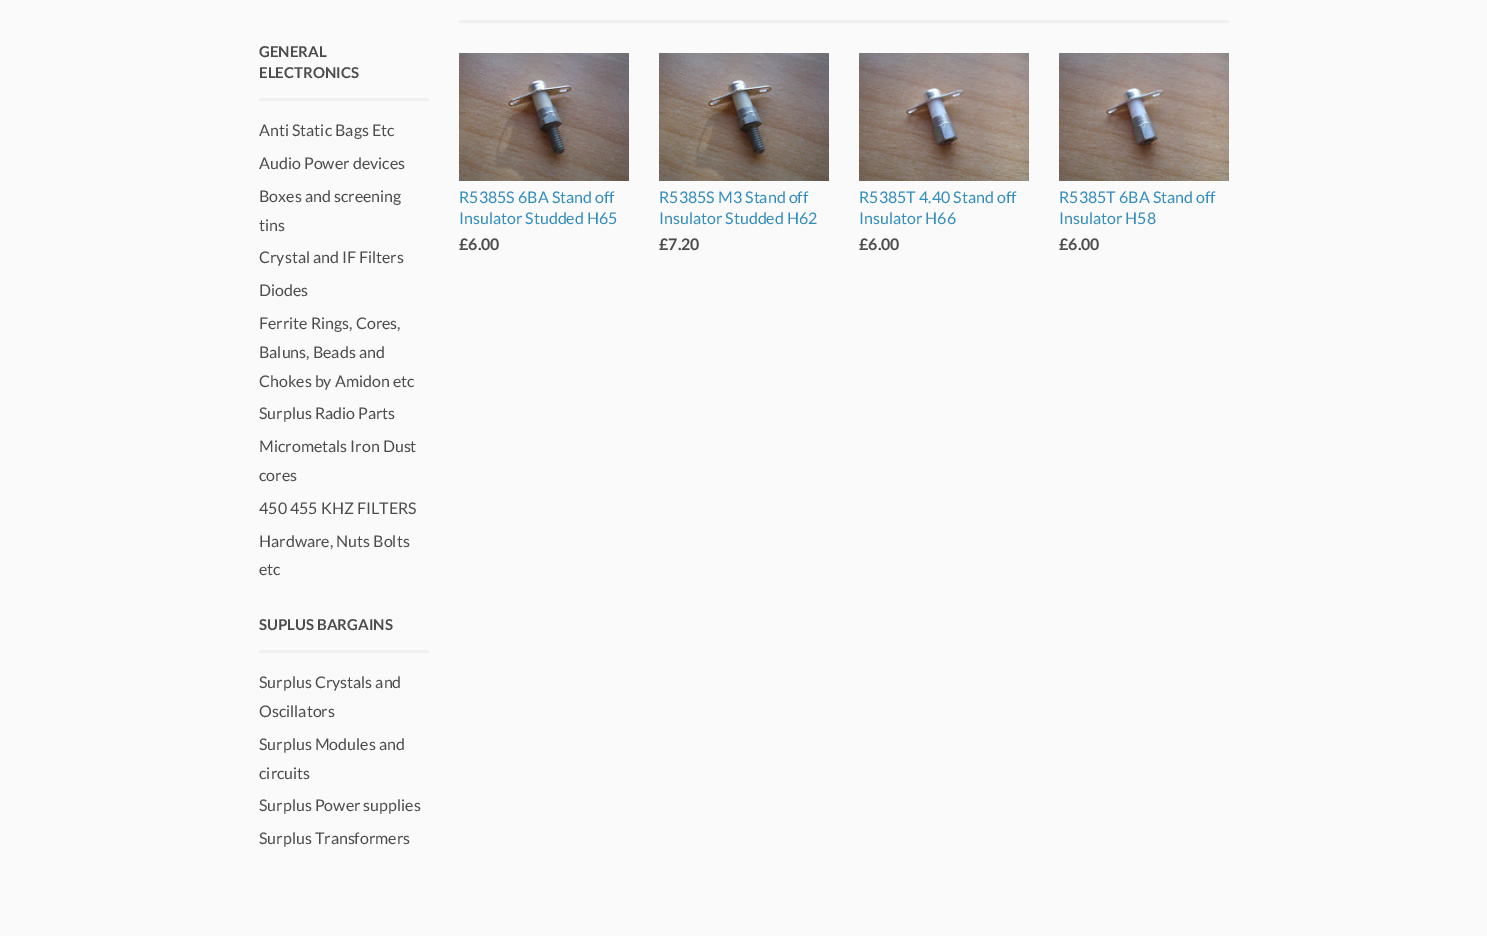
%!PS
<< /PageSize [1487 936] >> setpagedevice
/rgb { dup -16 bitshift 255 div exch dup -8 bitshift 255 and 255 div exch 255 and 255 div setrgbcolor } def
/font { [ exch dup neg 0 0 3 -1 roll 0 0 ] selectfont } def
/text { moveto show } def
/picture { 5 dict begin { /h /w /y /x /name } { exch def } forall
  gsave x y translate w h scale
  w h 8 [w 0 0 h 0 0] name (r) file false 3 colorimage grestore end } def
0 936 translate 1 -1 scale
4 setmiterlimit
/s1 { /Lato-Bold 15 font 16#4C4C4C rgb } def
/s2 { /Lato-Regular 16 font 16#4C4C4C rgb } def
/s3 { /Lato-Regular 16 font 16#338DBC rgb } def
/s4 { /Lato-Bold 16 font 16#4C4C4C rgb } def
16#FAFAFA rgb
0 0 1487 936 rectfill
16#F0F0F0 rgb
259 98 170 3 rectfill
s1
(GENERAL) 259 57 text
(ELECTRONICS) 259 78 text
s2
(Anti Static Bags Etc) 259 136 text
(Audio Power devices) 259 169 text
(Boxes and screening) 259 202 text
(tins) 259 231 text
(Crystal and IF Filters) 259 263 text
(Diodes) 259 296 text
(Ferrite Rings, Cores,) 259 329 text
(Baluns, Beads and) 259 358 text
(Chokes by Amidon etc) 259 387 text
(Surplus Radio Parts) 259 419 text
(Micrometals Iron Dust) 259 452 text
(cores) 259 481 text
(450 455 KHZ FILTERS) 259 514 text
(Hardware, Nuts Bolts) 259 547 text
(etc) 259 575 text
16#F0F0F0 rgb
259 650 170 3 rectfill
s1
(SUPLUS BARGAINS) 259 630 text
s2
(Surplus Crystals and) 259 688 text
(Oscillators) 259 717 text
(Surplus Modules and) 259 750 text
(circuits) 259 779 text
(Surplus Power supplies) 259 811 text
(Surplus Transformers) 259 844 text
16#F0F0F0 rgb
459 20 770 3 rectfill
(pic1.raw) 459 53 170 128 picture
s3
(R5385S 6BA Stand off) 459 203 text
(Insulator Studded H65) 459 224 text
s4
(£6.00) 459 250 text
(pic2.raw) 659 53 170 128 picture
s3
(R5385S M3 Stand off) 659 203 text
(Insulator Studded H62) 659 224 text
s4
(£7.20) 659 250 text
(pic3.raw) 859 53 170 128 picture
s3
(R5385T 4.40 Stand off) 859 203 text
(Insulator H66) 859 224 text
s4
(£6.00) 859 250 text
(pic4.raw) 1059 53 170 128 picture
s3
(R5385T 6BA Stand off) 1059 203 text
(Insulator H58) 1059 224 text
s4
(£6.00) 1059 250 text
showpage
